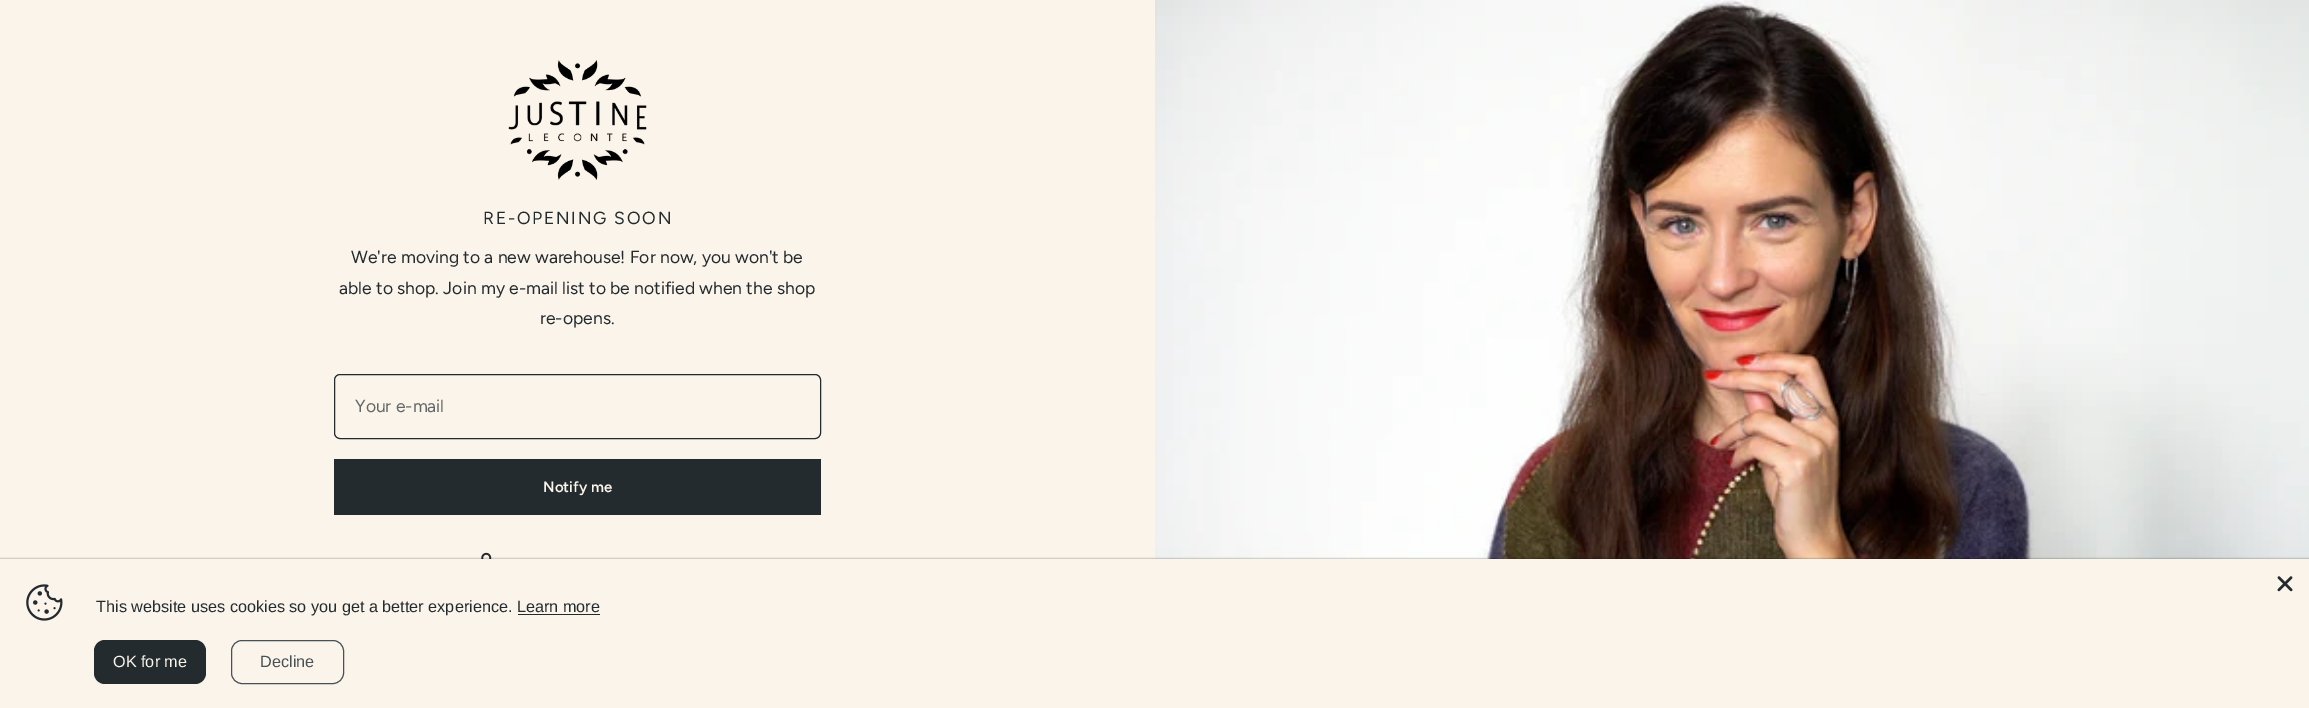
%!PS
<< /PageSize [2309 708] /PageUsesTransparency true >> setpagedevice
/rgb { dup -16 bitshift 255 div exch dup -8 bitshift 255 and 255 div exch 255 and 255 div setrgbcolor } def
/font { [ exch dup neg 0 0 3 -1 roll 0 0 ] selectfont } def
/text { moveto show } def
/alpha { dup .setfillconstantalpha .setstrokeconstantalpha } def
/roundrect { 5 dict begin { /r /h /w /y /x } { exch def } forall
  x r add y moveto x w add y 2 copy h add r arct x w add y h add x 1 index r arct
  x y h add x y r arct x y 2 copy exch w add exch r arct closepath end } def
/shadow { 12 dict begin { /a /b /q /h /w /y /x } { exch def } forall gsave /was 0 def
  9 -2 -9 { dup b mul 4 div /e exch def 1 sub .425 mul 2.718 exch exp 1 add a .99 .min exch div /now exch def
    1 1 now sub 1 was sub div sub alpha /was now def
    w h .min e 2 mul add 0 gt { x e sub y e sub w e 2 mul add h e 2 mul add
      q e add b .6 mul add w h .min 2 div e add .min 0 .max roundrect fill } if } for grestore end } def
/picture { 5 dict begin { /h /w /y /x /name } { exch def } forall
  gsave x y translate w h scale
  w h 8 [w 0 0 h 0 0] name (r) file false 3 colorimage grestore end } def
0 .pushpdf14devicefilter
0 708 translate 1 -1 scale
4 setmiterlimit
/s1 { /Figtree-Regular 17.5 font 16#232B2E rgb } def
/s2 { /Figtree-Regular 17.5 font 16#646767 rgb } def
/s3 { /Figtree-SemiBold 15 font 16#FBF4EB rgb } def
/s4 { /LiberationSans-Regular 16.25 font 16#232B2E rgb } def
/s5 { /LiberationSans-Regular 16.25 font 16#FBF4EB rgb } def
/s6 { /LiberationSans-Regular 16.25 font 16#485154 rgb } def
16#FBF4EB rgb
0 0 2309 708 rectfill
(pic1.raw) 508 60 139 120 picture
/Figtree-Regular 17.5 font
16#232B2E rgb
483 224 moveto 1.75 0 (RE-OPENING SOON) ashow
(We're moving to a new warehouse! For now, you won't be) 351 263 text
(able to shop. Join my e-mail list to be notified when the shop) 339 294 text
(re-opens.) 540 324 text
334.5 374.5 486 64 5.5 roundrect stroke
s2
(Your e-mail) 355 412 text
16#232B2E rgb
334 459 487 56 rectfill
s3
(Notify me) 543 492 text
(pic2.raw) 481 552 11 7 picture
(pic3.raw) 1155 0 1154 559 picture
16#000000 rgb
0 559 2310 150 0 1 0.5 shadow
16#FBF4EB rgb
0 559 2309 149 rectfill
(pic4.raw) 2277 576 16 16 picture
(pic5.raw) 26 584 37 37 picture
s4
(This website uses cookies so you get a better experience. Learn more) 96 612 text
518 614 82 1 rectfill
94 640 112 44 11 roundrect fill
s5
(OK for me) 113 667 text
16#485154 rgb
231.5 640.5 112 43 10.5 roundrect stroke
(Decline) 260 667 text
.poppdf14devicefilter showpage
